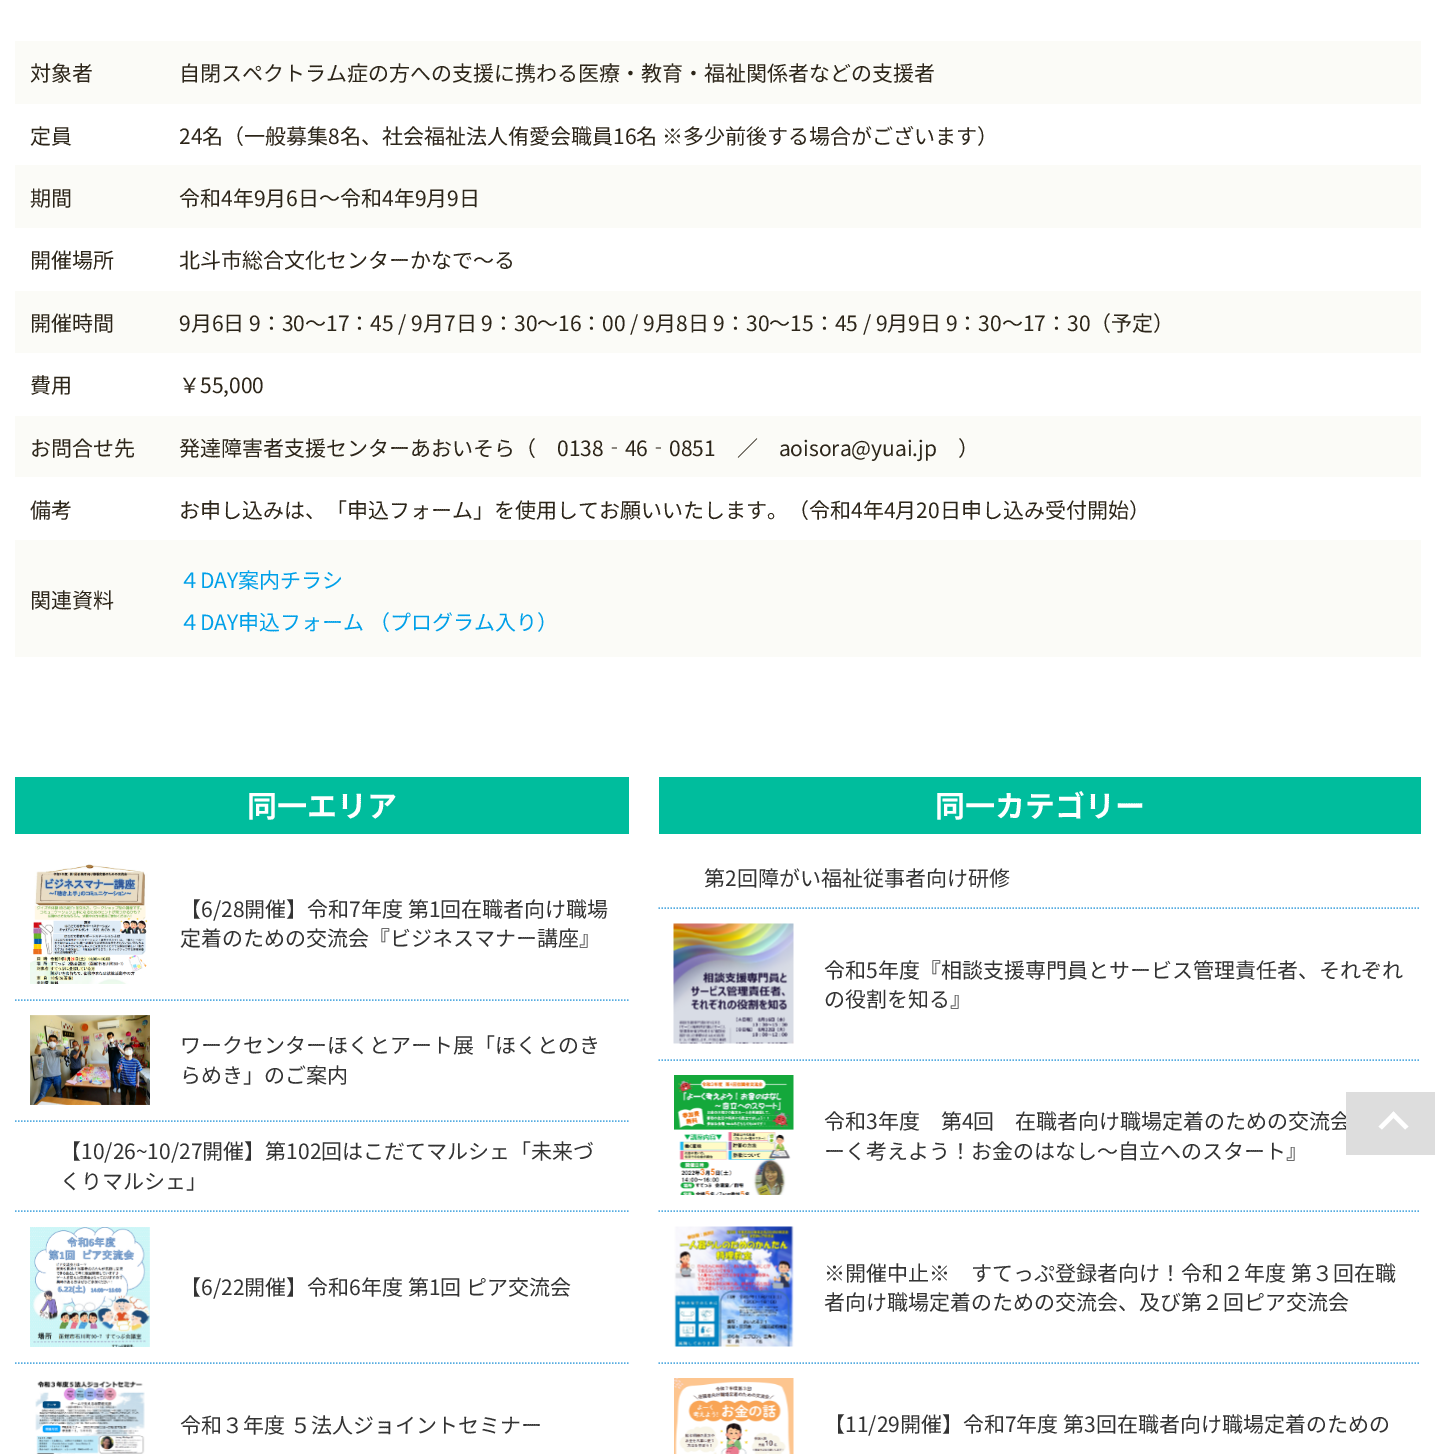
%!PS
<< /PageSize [1435 1454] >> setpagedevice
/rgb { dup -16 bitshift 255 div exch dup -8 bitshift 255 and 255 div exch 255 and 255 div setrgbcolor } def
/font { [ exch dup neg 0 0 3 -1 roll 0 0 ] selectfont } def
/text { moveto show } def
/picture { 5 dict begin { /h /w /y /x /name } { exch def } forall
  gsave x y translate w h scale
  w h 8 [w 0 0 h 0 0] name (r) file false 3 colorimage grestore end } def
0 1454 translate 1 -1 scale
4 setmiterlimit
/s1 { /NotoSansJP-Regular 21 font 16#2C2519 rgb } def
/s2 { /NotoSansJP-Regular 21 font 16#00A0E9 rgb } def
/s3 { /NotoSansJP-Bold 30 font 16#FFFFFF rgb } def
/s4 { /NotoSansJP-Regular 21 font 16#333333 rgb } def
16#FFFFFF rgb
0 0 1435 1454 rectfill
16#FBFBF7 rgb
15 41 1406 63 rectfill
s1
(対象者) 30 81 text
(自閉スペクトラム症の方への支援に携わる医療・教育・福祉関係者などの支援者) 179 81 text
(定員) 30 144 text
(24名（一般募集8名、社会福祉法人侑愛会職員16名 ※多少前後する場合がございます）) 179 144 text
16#FBFBF7 rgb
15 165 1406 63 rectfill
s1
(期間) 30 206 text
(令和4年9月6日～令和4年9月9日) 179 206 text
(開催場所) 30 268 text
(北斗市総合文化センターかなで～る) 179 268 text
16#FBFBF7 rgb
15 291 1406 62 rectfill
s1
(開催時間) 30 331 text
(9月6日 9：30～17：45 / 9月7日 9：30～16：00 / 9月8日 9：30～15：45 / 9月9日 9：30～17：30（予定）) 179 331 text
(費用) 30 393 text
(￥55,000) 179 393 text
16#FBFBF7 rgb
15 416 1406 61 rectfill
s1
(お問合せ先) 30 456 text
(発達障害者支援センターあおいそら（　0138‐46‐0851　／　aoisora@yuai.jp　）) 179 456 text
(備考) 30 518 text
(お申し込みは、「申込フォーム」を使用してお願いいたします。（令和4年4月20日申し込み受付開始）) 179 518 text
16#FBFBF7 rgb
15 540 1406 117 rectfill
s1
(関連資料) 30 608 text
s2
(４DAY案内チラシ) 179 588 text
(４DAY申込フォーム （プログラム入り）) 179 630 text
16#00BD9D rgb
15 777 614 57 rectfill
s3
(同一エリア) 247 817 text
16#55ACE1 rgb
1.5 setlinewidth
[1.5 1.5] 0 setdash
15 1000 moveto 628.5 1000 lineto stroke
(pic1.raw) 30 864 118 120 picture
s4
(【6/28開催】令和7年度 第1回在職者向け職場) 180 917 text
(定着のための交流会『ビジネスマナー講座』) 180 946 text
16#55ACE1 rgb
15 1121 moveto 628.5 1121 lineto stroke
(pic2.raw) 30 1015 120 90 picture
s4
(ワークセンターほくとアート展「ほくとのき) 180 1053 text
(らめき」のご案内) 180 1083 text
16#55ACE1 rgb
15 1211 moveto 628.5 1211 lineto stroke
s4
(【10/26~10/27開催】第102回はこだてマルシェ「未来づ) 60 1159 text
(くりマルシェ」) 60 1189 text
16#55ACE1 rgb
15 1363 moveto 628.5 1363 lineto stroke
(pic3.raw) 30 1227 120 120 picture
s4
(【6/22開催】令和6年度 第1回 ピア交流会) 180 1295 text
(pic4.raw) 35 1380 110 74 picture
(令和３年度 ５法人ジョイントセミナー) 180 1433 text
16#00BD9D rgb
659 777 762 57 rectfill
s3
(同一カテゴリー) 935 817 text
16#55ACE1 rgb
658.5 908 moveto 1420.5 908 lineto stroke
s4
(第2回障がい福祉従事者向け研修) 704 886 text
16#55ACE1 rgb
658.5 1060 moveto 1420.5 1060 lineto stroke
(pic5.raw) 673 923 121 121 picture
s4
(令和5年度『相談支援専門員とサービス管理責任者、それぞれ) 824 978 text
(の役割を知る』) 824 1007 text
16#55ACE1 rgb
658.5 1211 moveto 1420.5 1211 lineto stroke
(pic6.raw) 674 1075 120 120 picture
s4
(令和3年度　第4回　在職者向け職場定着のための交流会) 824 1129 text
(ーく考えよう！お金のはなし～自立へのスタート』) 824 1159 text
16#55ACE1 rgb
658.5 1363 moveto 1420.5 1363 lineto stroke
(pic7.raw) 674 1226 120 121 picture
s4
(※開催中止※　すてっぷ登録者向け！令和２年度 第３回在職) 824 1281 text
(者向け職場定着のための交流会、及び第２回ピア交流会) 824 1310 text
(pic8.raw) 674 1378 120 76 picture
(【11/29開催】令和7年度 第3回在職者向け職場定着のための) 824 1432 text
16#DDDDDD rgb
1346 1092 89 63 rectfill
16#FFFFFF rgb
1378.5 1126.5 moveto 1393.5 1111.5 lineto 1396.5 1115 lineto 1382 1129.5 lineto closepath fill
1390.5 1115 moveto 1393.5 1111.5 lineto 1408.5 1126.5 lineto 1405 1129.5 lineto closepath fill
showpage
